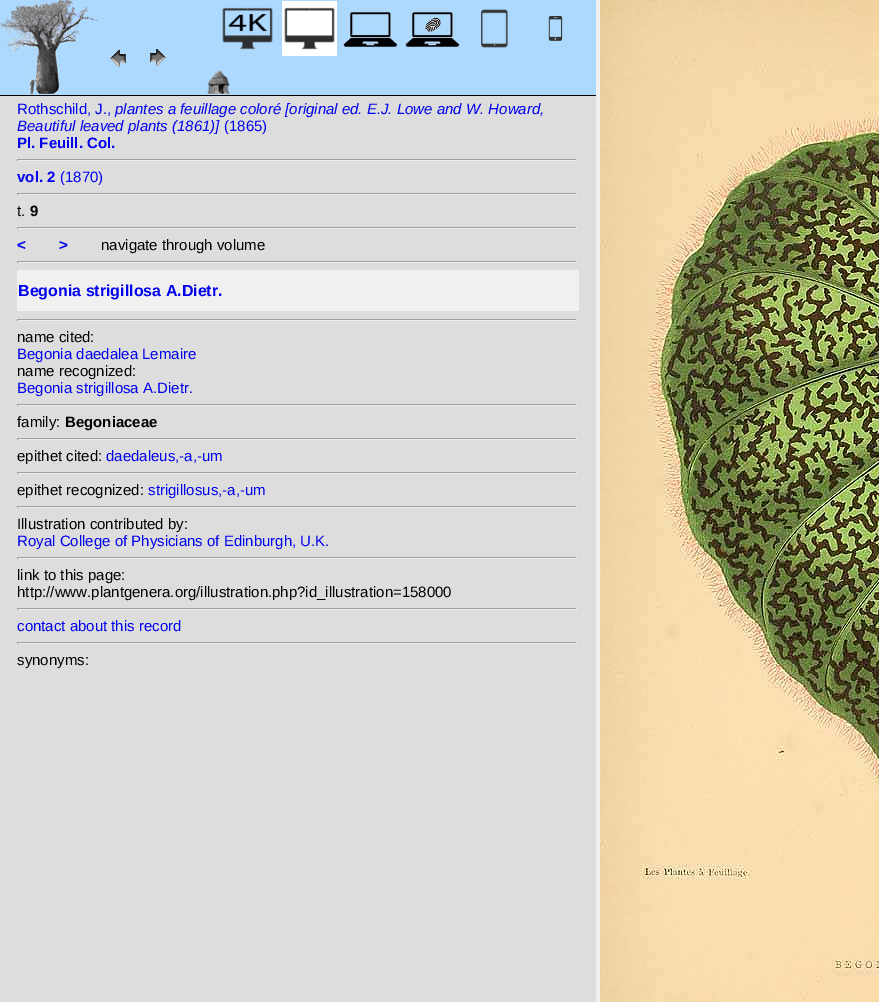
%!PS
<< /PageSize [879 1002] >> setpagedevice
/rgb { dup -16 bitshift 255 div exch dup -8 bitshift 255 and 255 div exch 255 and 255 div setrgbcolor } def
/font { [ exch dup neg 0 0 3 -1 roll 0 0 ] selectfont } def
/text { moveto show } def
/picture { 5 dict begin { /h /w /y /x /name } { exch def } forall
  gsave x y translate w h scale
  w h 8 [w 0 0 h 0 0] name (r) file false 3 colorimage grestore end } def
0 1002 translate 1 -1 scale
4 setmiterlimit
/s1 { /LiberationSans-Regular 15 font 16#0000EE rgb } def
/s2 { /LiberationSans-Italic 15 font 16#0000EE rgb } def
/s3 { /LiberationSans-Bold 15 font 16#0000EE rgb } def
/s4 { /LiberationSans-Regular 15 font 16#000000 rgb } def
/s5 { /LiberationSans-Bold 15 font 16#000000 rgb } def
/s6 { /LiberationSans-Bold 16 font 16#0000EE rgb } def
16#F0F0F0 rgb
0 0 879 1002 rectfill
16#DDDDDD rgb
0 96 596 906 rectfill
16#ADD9FE rgb
0 0 596 95 rectfill
16#000000 rgb
0 95 596 1 rectfill
(pic1.raw) 0 0 100 94 picture
(pic2.raw) 110 50 16 17 picture
(pic3.raw) 150 49 16 17 picture
(pic4.raw) 222 7 51 43 picture
(pic5.raw) 282 1 55 55 picture
(pic6.raw) 343 9 55 38 picture
(pic7.raw) 405 9 55 38 picture
(pic8.raw) 481 9 27 39 picture
(pic9.raw) 548 15 15 26 picture
(pic10.raw) 207 70 23 24 picture
s1
(Rothschild, J.,) 17 114 text
s2
(plantes a feuillage coloré [original ed. E.J. Lowe and W. Howard,) 115 114 text
(Beautiful leaved plants \(1861\)]) 17 131 text
s1
(\(1865\)) 224 131 text
s3
(Pl. Feuill. Col.) 17 148 text
16#9F9F9F rgb
17 159 560 1 rectfill
16#EEEEEE rgb
576 159 1 2 rectfill
17 160 560 1 rectfill
16#9F9F9F rgb
17 159 1 2 rectfill
s3
(vol. 2) 17 182 text
s1
(\(1870\)) 60 182 text
16#9F9F9F rgb
17 193 560 1 rectfill
16#EEEEEE rgb
576 193 1 2 rectfill
17 194 560 1 rectfill
16#9F9F9F rgb
17 193 1 2 rectfill
s4
(t.) 17 216 text
s5
(9) 30 216 text
16#9F9F9F rgb
17 227 560 1 rectfill
16#EEEEEE rgb
576 227 1 2 rectfill
17 228 560 1 rectfill
16#9F9F9F rgb
17 227 1 2 rectfill
s3
(<) 17 250 text
(>) 59 250 text
s4
(navigate through volume) 101 250 text
16#9F9F9F rgb
17 261 560 1 rectfill
16#EEEEEE rgb
576 261 1 2 rectfill
17 262 560 1 rectfill
16#9F9F9F rgb
17 261 1 2 rectfill
16#F0F0F0 rgb
17 270 562 41 rectfill
s6
(Begonia strigillosa A.Dietr.) 18 296 text
16#9F9F9F rgb
17 319 560 1 rectfill
16#EEEEEE rgb
576 319 1 2 rectfill
17 320 560 1 rectfill
16#9F9F9F rgb
17 319 1 2 rectfill
s4
(name cited:) 17 342 text
s1
(Begonia daedalea Lemaire) 17 359 text
s4
(name recognized:) 17 376 text
s1
(Begonia strigillosa A.Dietr.) 17 393 text
16#9F9F9F rgb
17 404 560 1 rectfill
16#EEEEEE rgb
576 404 1 2 rectfill
17 405 560 1 rectfill
16#9F9F9F rgb
17 404 1 2 rectfill
s4
(family:) 17 427 text
s5
(Begoniaceae) 65 427 text
16#9F9F9F rgb
17 438 560 1 rectfill
16#EEEEEE rgb
576 438 1 2 rectfill
17 439 560 1 rectfill
16#9F9F9F rgb
17 438 1 2 rectfill
s4
(epithet cited:) 17 461 text
s1
(daedaleus,-a,-um) 106 461 text
16#9F9F9F rgb
17 472 560 1 rectfill
16#EEEEEE rgb
576 472 1 2 rectfill
17 473 560 1 rectfill
16#9F9F9F rgb
17 472 1 2 rectfill
s4
(epithet recognized:) 17 495 text
s1
(strigillosus,-a,-um) 148 495 text
16#9F9F9F rgb
17 506 560 1 rectfill
16#EEEEEE rgb
576 506 1 2 rectfill
17 507 560 1 rectfill
16#9F9F9F rgb
17 506 1 2 rectfill
s4
(Illustration contributed by:) 17 529 text
s1
(Royal College of Physicians of Edinburgh, U.K.) 17 546 text
16#9F9F9F rgb
17 557 560 1 rectfill
16#EEEEEE rgb
576 557 1 2 rectfill
17 558 560 1 rectfill
16#9F9F9F rgb
17 557 1 2 rectfill
s4
(link to this page:) 17 580 text
(http://www.plantgenera.org/illustration.php?id_illustration=158000) 17 597 text
16#9F9F9F rgb
17 608 560 1 rectfill
16#EEEEEE rgb
576 608 1 2 rectfill
17 609 560 1 rectfill
16#9F9F9F rgb
17 608 1 2 rectfill
s1
(contact about this record) 17 631 text
16#9F9F9F rgb
17 642 560 1 rectfill
16#EEEEEE rgb
576 642 1 2 rectfill
17 643 560 1 rectfill
16#9F9F9F rgb
17 642 1 2 rectfill
s4
(synonyms:) 17 665 text
(pic11.raw) 600 0 279 1002 picture
showpage
